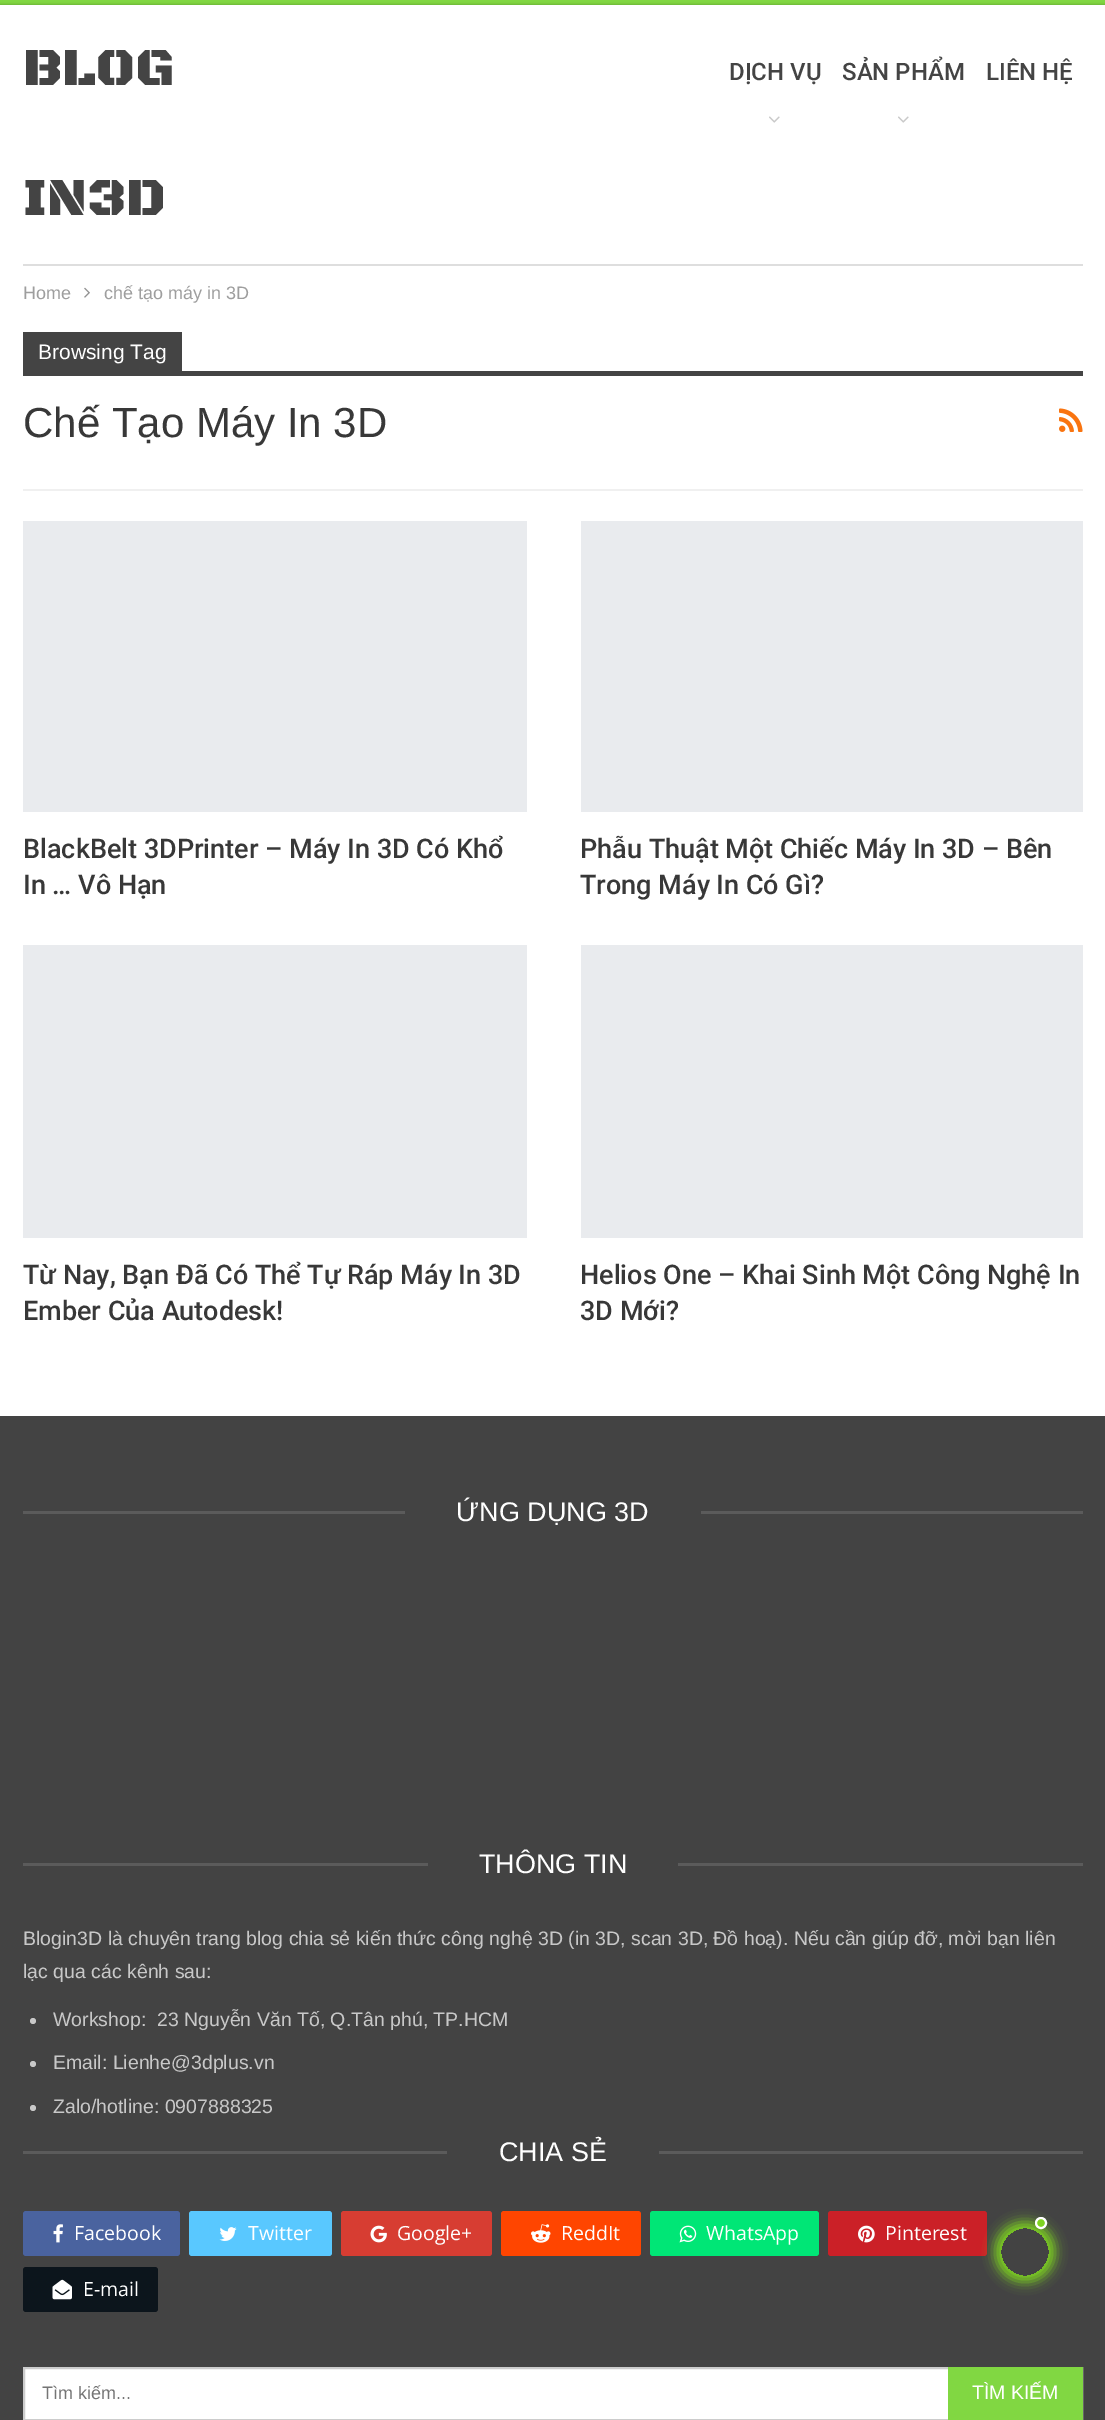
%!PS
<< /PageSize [1105 2420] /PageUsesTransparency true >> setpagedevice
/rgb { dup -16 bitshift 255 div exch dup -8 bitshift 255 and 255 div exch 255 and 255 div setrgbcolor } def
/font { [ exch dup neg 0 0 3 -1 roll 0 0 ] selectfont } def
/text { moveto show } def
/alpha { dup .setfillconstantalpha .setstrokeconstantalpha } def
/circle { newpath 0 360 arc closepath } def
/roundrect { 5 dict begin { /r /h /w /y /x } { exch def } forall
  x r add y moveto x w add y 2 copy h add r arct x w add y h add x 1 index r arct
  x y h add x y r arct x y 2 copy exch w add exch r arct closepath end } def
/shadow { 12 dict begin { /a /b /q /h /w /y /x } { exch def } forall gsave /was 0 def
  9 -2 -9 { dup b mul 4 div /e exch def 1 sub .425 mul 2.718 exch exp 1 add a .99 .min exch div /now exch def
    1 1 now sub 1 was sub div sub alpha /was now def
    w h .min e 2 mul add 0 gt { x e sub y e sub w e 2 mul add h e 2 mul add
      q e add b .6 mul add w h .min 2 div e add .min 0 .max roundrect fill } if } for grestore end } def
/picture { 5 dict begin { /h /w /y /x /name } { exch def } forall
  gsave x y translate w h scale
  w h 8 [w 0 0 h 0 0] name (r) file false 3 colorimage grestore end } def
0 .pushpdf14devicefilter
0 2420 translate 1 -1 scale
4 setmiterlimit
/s1 { /BlackOpsOne-Black 54 font 16#444444 rgb } def
/s2 { /Roboto-Medium 24 font 16#444444 rgb } def
/s3 { /LiberationSans-Regular 18 font 16#9E9E9E rgb } def
/s4 { /LiberationSans-Regular 21 font 16#FFFFFF rgb } def
/s5 { /LiberationSans-Regular 42 font 16#383838 rgb } def
/s6 { /Roboto-Medium 27 font 16#383838 rgb } def
/s7 { /LiberationSans-Regular 27 font 16#FFFFFF rgb } def
/s8 { /LiberationSans-Regular 19.5 font 16#C8C8C8 rgb } def
/s9 { /OpenSans-Regular 19.5 font 16#FFFFFF rgb } def
/s10 { /LiberationSans-Regular 18 font 16#757575 rgb } def
/s11 { /LiberationSans-Regular 19.5 font 16#FFFFFF rgb } def
16#81D742 rgb
0 0 1105 2420 rectfill
16#000000 rgb
0 5 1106 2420 0 1.5 0.27 shadow
16#FFFFFF rgb
0 5 1105 1411 rectfill
16#DEDEDE rgb
23 264 1060 2 rectfill
s1
(BLOG) 23 85 text
(IN3D) 23 215 text
s2
(DỊCH VỤ) 729 80 text
(pic1.raw) 769 116 11 7 picture
(SẢN PHẨM) 842 80 text
(pic1.raw) 898 116 11 7 picture
(LIÊN HỆ) 986 80 text
s3
(Home) 23 299 text
(pic2.raw) 84 287 6 11 picture
(chế tạo máy in 3D) 104 299 text
16#F0F0F0 rgb
23 489 1060 2 rectfill
16#444444 rgb
23 332 159 39 rectfill
s4
(Browsing Tag) 38 359 text
16#444444 rgb
23 371 1060 5 rectfill
s5
(Chế Tạo Máy In 3D) 23 437 text
(pic3.raw) 1059 408 24 24 picture
16#E9EBEE rgb
23 521 504 291 rectfill
s6
(BlackBelt 3DPrinter – Máy In 3D Có Khổ) 23 858 text
(In … Vô Hạn) 23 894 text
16#E9EBEE rgb
581 521 502 291 rectfill
s6
(Phẫu Thuật Một Chiếc Máy In 3D – Bên) 580 858 text
(Trong Máy In Có Gì?) 580 894 text
16#E9EBEE rgb
23 945 504 293 rectfill
s6
(Từ Nay, Bạn Đã Có Thể Tự Ráp Máy In 3D) 23 1284 text
(Ember Của Autodesk!) 23 1320 text
16#E9EBEE rgb
581 945 502 293 rectfill
s6
(Helios One – Khai Sinh Một Công Nghệ In) 580 1284 text
(3D Mới?) 580 1320 text
16#434343 rgb
0 1416 1105 1004 rectfill
16#5B5B5B rgb
23 1511 1060 3 rectfill
16#434343 rgb
405 1511 296 3 rectfill
s7
(ỨNG DỤNG 3D) 456 1521 text
16#5B5B5B rgb
23 1863 1060 3 rectfill
16#434343 rgb
428 1863 250 3 rectfill
s7
(THÔNG TIN) 479 1873 text
s8
(Blogin3D là chuyên trang blog chia sẻ kiến thức công nghệ 3D \(in 3D, scan 3D, Đồ hoạ\). Nếu cần giúp đỡ, mời bạn liên) 23 1945 text
(lạc qua các kênh sau:) 23 1978 text
33 2021 3 circle fill
(Workshop:  23 Nguyễn Văn Tố, Q.Tân phú, TP.HCM) 53 2026 text
33 2064 3 circle fill
(Email: Lienhe@3dplus.vn) 53 2069 text
33 2108 3 circle fill
(Zalo/hotline: 0907888325) 53 2113 text
16#5B5B5B rgb
23 2151 1060 3 rectfill
16#434343 rgb
447 2151 212 3 rectfill
s7
(CHIA SẺ) 499 2161 text
16#4A639F rgb
23 2211 157 45 3 roundrect fill
(pic4.raw) 53 2224 10 19 picture
s9
(Facebook) 74 2240 text
16#59C8FF rgb
189 2211 143 45 3 roundrect fill
(pic5.raw) 219 2227 18 14 picture
s9
(Twitter) 248 2240 text
16#D73D32 rgb
341 2211 151 45 3 roundrect fill
(pic6.raw) 370 2225 17 18 picture
s9
(Google+) 397 2240 text
16#FF4500 rgb
501 2211 140 45 3 roundrect fill
(pic7.raw) 531 2224 20 19 picture
s9
(ReddIt) 561 2240 text
16#00E676 rgb
650 2211 169 45 3 roundrect fill
(pic8.raw) 679 2225 18 18 picture
s9
(WhatsApp) 706 2240 text
16#CB2027 rgb
828 2211 159 45 3 roundrect fill
(pic9.raw) 858 2225 17 18 picture
s9
(Pinterest) 885 2240 text
16#0C151C rgb
23 2267 135 45 3 roundrect fill
(pic10.raw) 52 2279 20 21 picture
s9
(E-mail) 83 2296 text
25 2369 923 50 rectfill
16#CCCCCC rgb
2 setlinewidth
24 2368 1058 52 rectstroke
s10
(Tìm kiếm...) 42 2399 text
16#81D742 rgb
948 2367 135 53 rectfill
s11
(TÌM KIẾM) 972 2399 text
gsave
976 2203 moveto 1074 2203 lineto 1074 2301 lineto 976 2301 lineto closepath 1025 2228 moveto 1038.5 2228 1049 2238.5 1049 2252 curveto 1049 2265.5 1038.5 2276 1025 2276 curveto 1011.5 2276 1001 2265.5 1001 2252 curveto 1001 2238.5 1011.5 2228 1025 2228 curveto closepath eoclip newpath
16#7ED321 rgb
995 2222 60 60 30 6 1 shadow
grestore
16#7ED321 rgb
1041 2223 5 circle gsave fill grestore
16#FFFFFF rgb
stroke
.poppdf14devicefilter showpage
